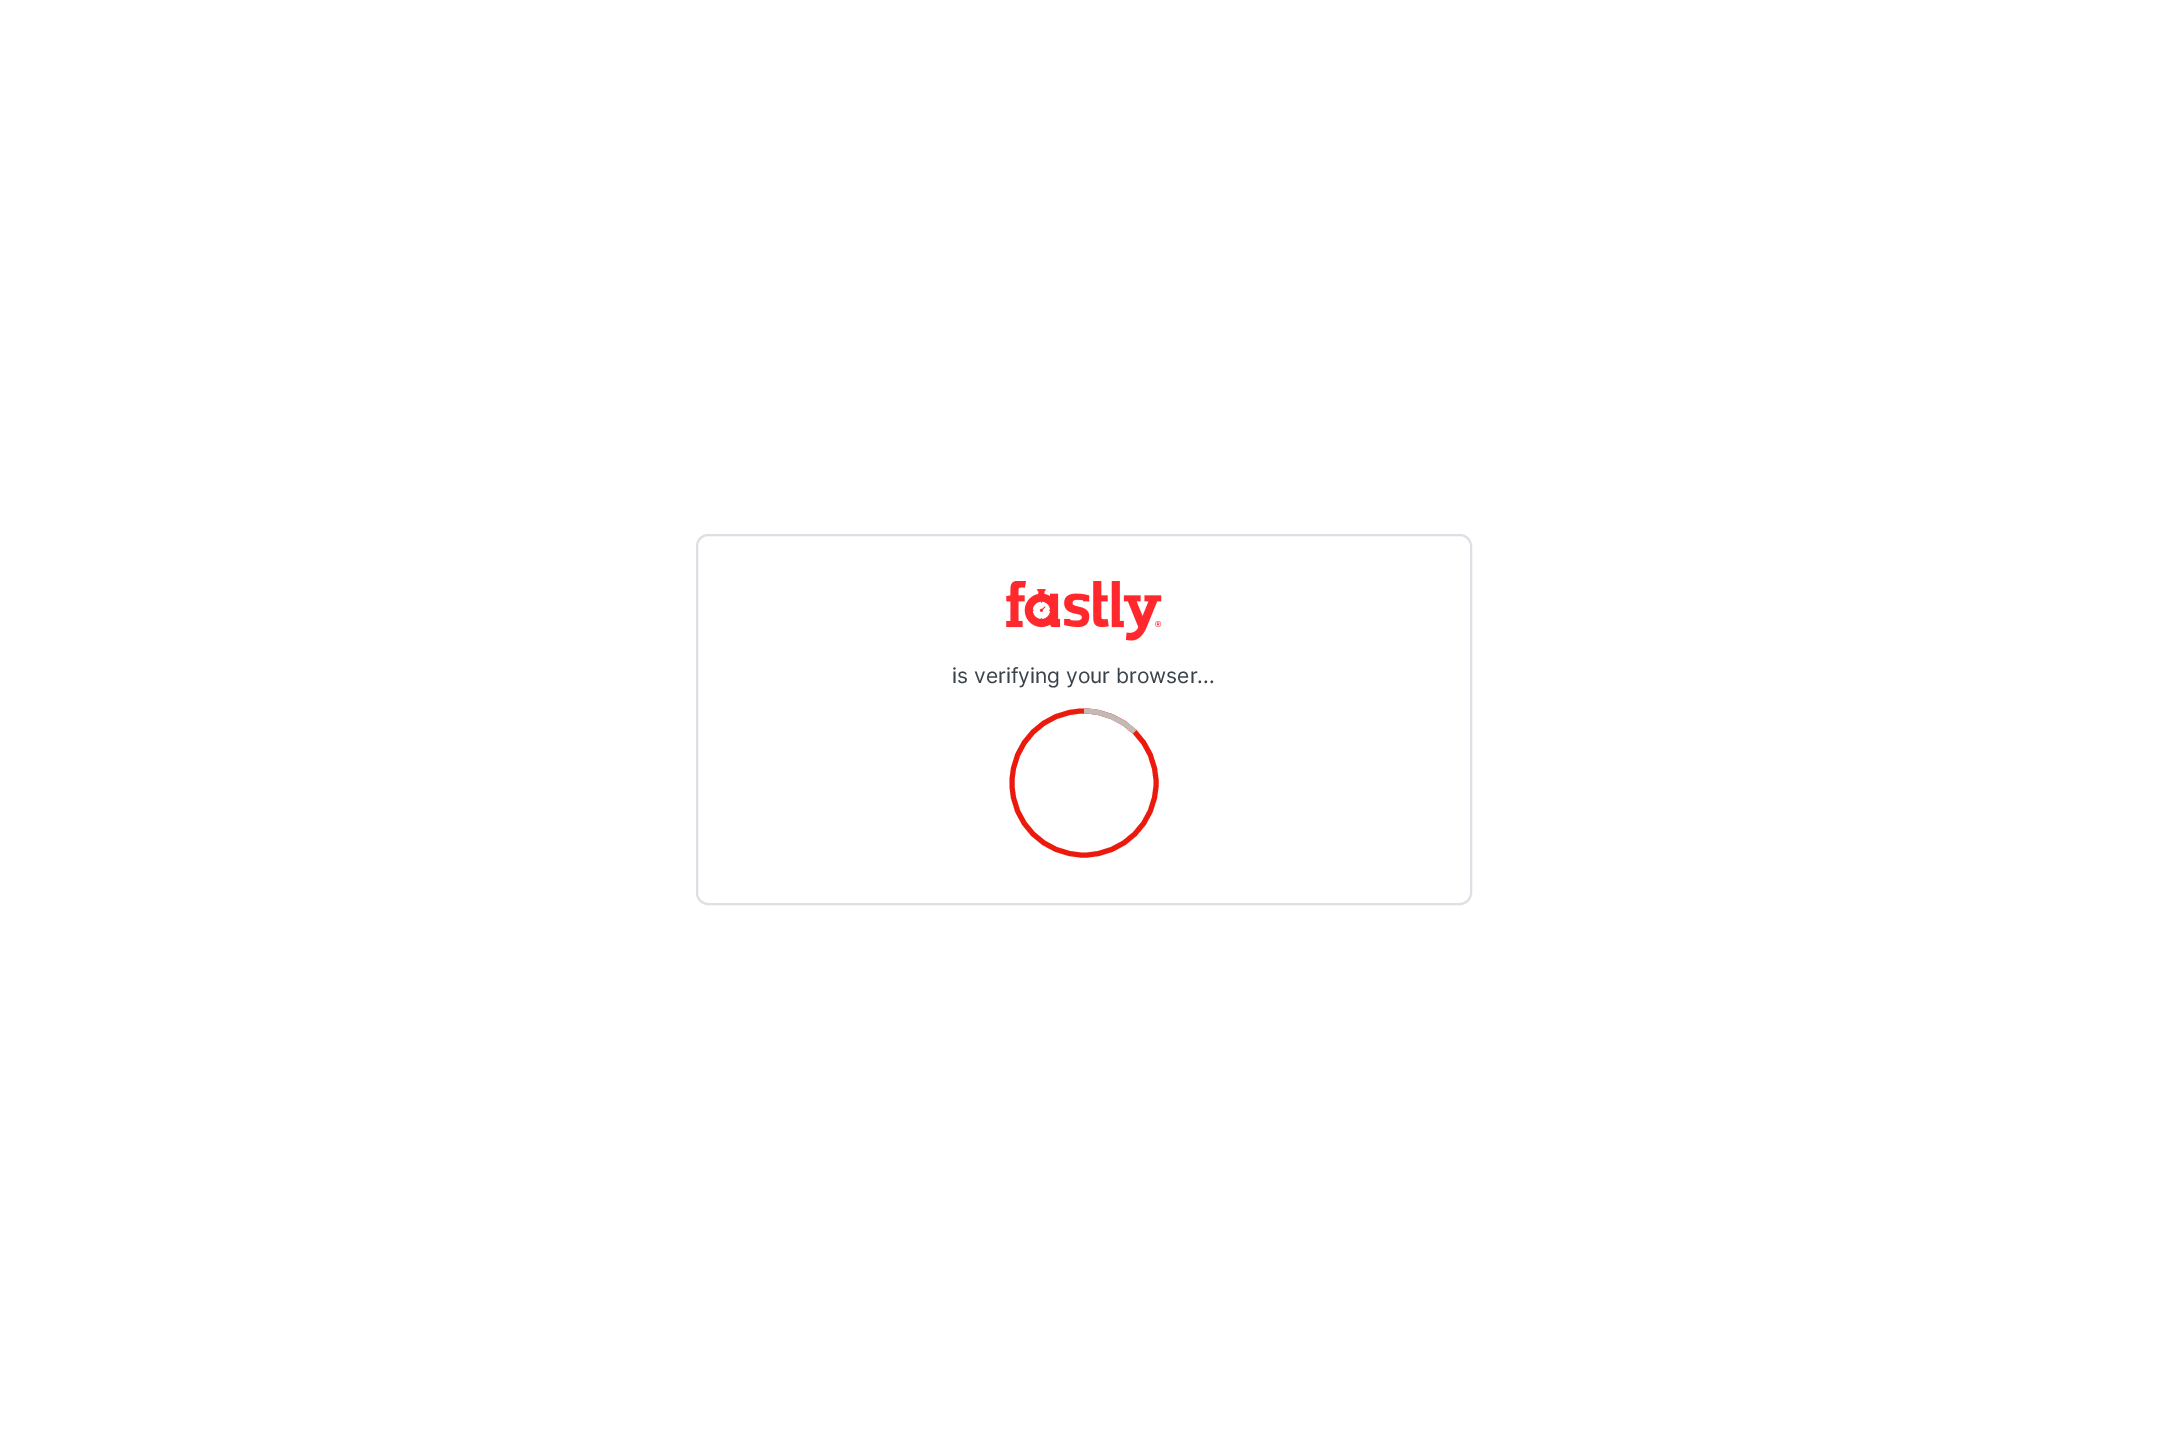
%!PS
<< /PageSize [2167 1438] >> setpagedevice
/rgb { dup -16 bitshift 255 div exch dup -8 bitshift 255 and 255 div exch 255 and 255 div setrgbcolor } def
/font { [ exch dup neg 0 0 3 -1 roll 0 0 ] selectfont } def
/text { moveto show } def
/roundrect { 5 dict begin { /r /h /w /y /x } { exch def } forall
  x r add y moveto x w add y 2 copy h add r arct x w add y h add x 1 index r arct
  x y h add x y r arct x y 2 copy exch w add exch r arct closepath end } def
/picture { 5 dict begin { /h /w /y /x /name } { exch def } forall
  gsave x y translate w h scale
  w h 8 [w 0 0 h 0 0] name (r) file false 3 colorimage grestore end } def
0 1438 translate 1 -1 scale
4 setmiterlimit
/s1 { /Inter-Regular 21 font 16#3A424A rgb } def
16#FFFFFF rgb
0 0 2167 1438 rectfill
16#DCE0E4 rgb
2 setlinewidth
697 535 774 369 11 roundrect stroke
(pic1.raw) 1006 581 156 60 picture
s1
(is verifying your browser...) 952 683 text
16#EB1A0C rgb
5 setlinewidth
1012 783 moveto 1012 743 1044 711 1084 711 curveto 1123.5 711 1156 743 1156 783 curveto 1156 823 1123.5 855 1084 855 curveto 1044 855 1012 823 1012 783 curveto closepath stroke
16#C2BAB5 rgb
1134.5 732 moveto 1121 718.5 1103 711 1084 711 curveto stroke
showpage
